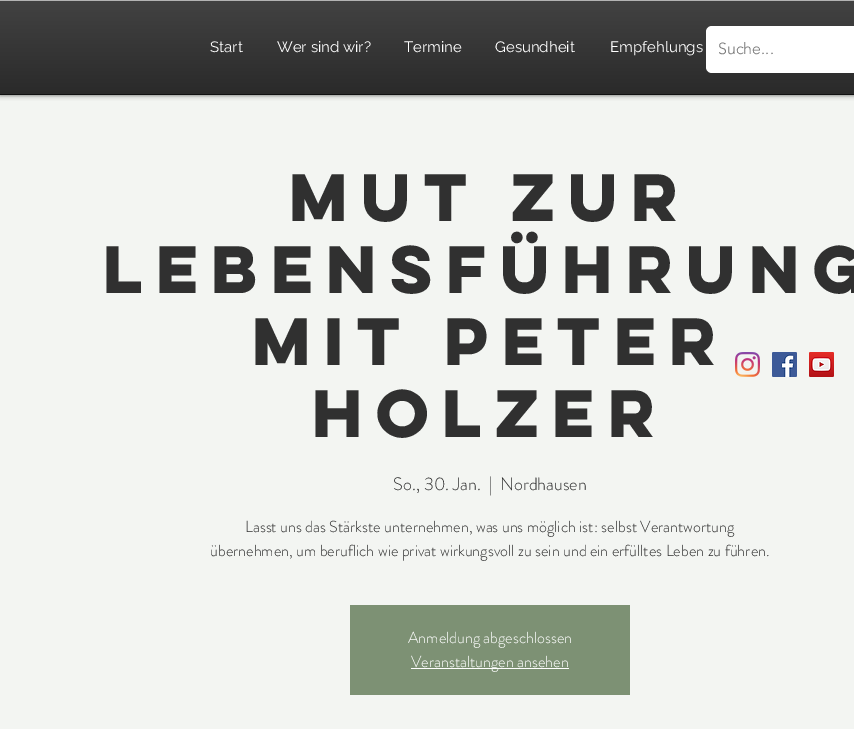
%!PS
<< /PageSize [854 729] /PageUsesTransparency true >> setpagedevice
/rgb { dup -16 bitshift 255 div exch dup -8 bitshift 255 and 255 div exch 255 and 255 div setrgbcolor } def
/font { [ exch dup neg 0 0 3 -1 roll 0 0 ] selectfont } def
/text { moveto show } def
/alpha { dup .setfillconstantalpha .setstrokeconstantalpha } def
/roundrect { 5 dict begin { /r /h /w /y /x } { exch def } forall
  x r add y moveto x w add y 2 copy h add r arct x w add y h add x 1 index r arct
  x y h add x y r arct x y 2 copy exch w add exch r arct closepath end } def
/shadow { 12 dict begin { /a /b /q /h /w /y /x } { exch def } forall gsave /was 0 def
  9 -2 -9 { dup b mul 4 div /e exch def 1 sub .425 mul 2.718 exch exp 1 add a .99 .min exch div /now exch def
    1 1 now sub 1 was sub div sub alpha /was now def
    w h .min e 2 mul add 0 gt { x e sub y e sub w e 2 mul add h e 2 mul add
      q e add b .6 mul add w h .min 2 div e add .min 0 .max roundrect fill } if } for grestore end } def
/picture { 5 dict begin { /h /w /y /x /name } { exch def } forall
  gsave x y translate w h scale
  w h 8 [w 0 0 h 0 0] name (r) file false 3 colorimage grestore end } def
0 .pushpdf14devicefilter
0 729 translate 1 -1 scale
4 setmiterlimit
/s1 { /Raleway-Regular 15 font 16#FFFFFF rgb } def
/s2 { /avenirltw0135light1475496-Light 16 font 16#787878 rgb } def
/s3 { /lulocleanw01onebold-Bold 60 font 16#303030 rgb } def
/s4 { /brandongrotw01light-Light 18 font 16#303030 rgb } def
/s5 { /brandongrotw01light-Light 16 font 16#303030 rgb } def
/s6 { /brandongrotw01light-Light 16 font 16#FFFFFF rgb } def
16#F3F5F2 rgb
0 0 854 729 rectfill
16#000000 rgb
0 0 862 95 0 2.5 0.6 shadow
0 1 854 93 rectfill
(pic1.raw) 0 1 854 93 picture
s1
(Start) 210 52 text
(Wer sind wir?) 277 52 text
(Termine) 404 52 text
(Gesundheit) 495 52 text
(Empfehlungs) 610 52 text
16#111111 rgb
0 94 854 1 rectfill
16#B3B3B3 rgb
0 0 854 1 rectfill
16#FFFFFF rgb
706 26 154 47 6 roundrect fill
s2
(Suche...) 718 54 text
s3
(MUT ZUR) 289 221 text
(LEBENSFÜHRUNG) 103 293 text
(mit Peter) 252 365 text
(Holzer) 312 437 text
s4
(So., 30. Jan.) 393 490 text
(|) 489 490 text
(Nordhausen) 500 490 text
s5
(Lasst uns das Stärkste unternehmen, was uns möglich ist: selbst Verantwortung) 245 532 text
(übernehmen, um beruflich wie privat wirkungsvoll zu sein und ein erfülltes Leben zu führen.) 210 556 text
16#7D9174 rgb
350 605 280 90 rectfill
s6
(Anmeldung abgeschlossen) 408 643 text
411 668 158 1 rectfill
(Veranstaltungen ansehen) 411 667 text
(pic2.raw) 735 352 25 25 picture
(pic3.raw) 772 352 25 25 picture
(pic4.raw) 809 352 25 25 picture
.poppdf14devicefilter showpage
